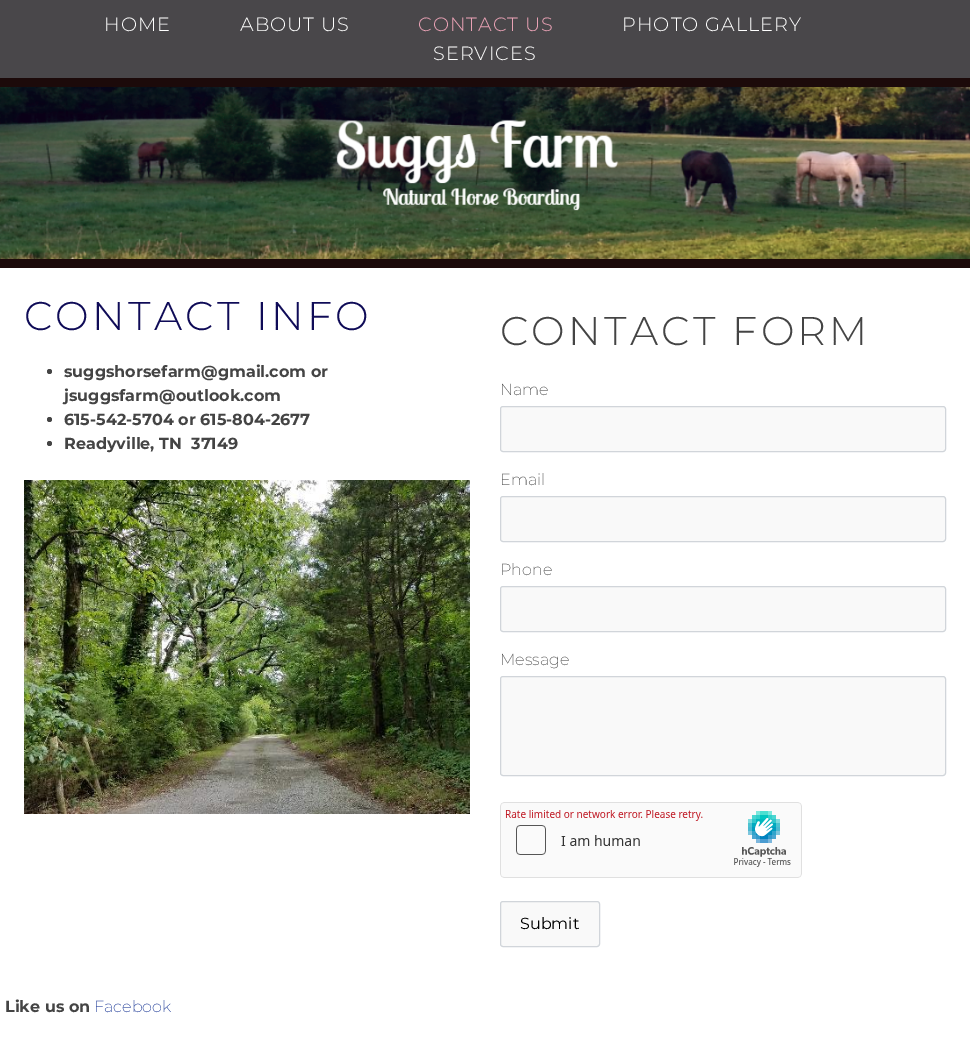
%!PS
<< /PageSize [970 1058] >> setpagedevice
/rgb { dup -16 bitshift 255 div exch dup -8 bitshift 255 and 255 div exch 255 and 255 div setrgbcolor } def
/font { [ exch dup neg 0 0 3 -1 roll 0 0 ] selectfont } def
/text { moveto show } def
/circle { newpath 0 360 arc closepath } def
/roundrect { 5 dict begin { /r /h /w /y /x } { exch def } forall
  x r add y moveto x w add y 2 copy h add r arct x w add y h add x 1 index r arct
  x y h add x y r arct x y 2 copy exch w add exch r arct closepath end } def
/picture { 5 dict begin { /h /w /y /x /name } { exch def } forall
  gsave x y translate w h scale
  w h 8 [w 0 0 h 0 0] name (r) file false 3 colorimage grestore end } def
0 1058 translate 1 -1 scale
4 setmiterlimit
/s1 { /Montserrat-Bold 16 font 16#444444 rgb } def
/s2 { /Montserrat-ExtraLight 16 font 16#444444 rgb } def
/s3 { /Montserrat-Regular 16 font 16#000000 rgb } def
/s4 { /Montserrat-ExtraLight 16 font 16#102E91 rgb } def
16#FFFFFF rgb
0 0 970 1058 rectfill
16#49474A rgb
0 0 970 78 rectfill
/Montserrat-Light 19.25 font
16#FFFFFF rgb
104 31 moveto 1 0 (HOME) ashow
240 31 moveto 1 0 (ABOUT US) ashow
16#E9A2B5 rgb
418 31 moveto 1 0 (CONTACT US) ashow
16#FFFFFF rgb
622 31 moveto 1 0 (PHOTO GALLERY) ashow
433 60 moveto 1 0 (SERVICES) ashow
16#1C0A0A rgb
0 78 970 190 rectfill
(pic1.raw) 0 87 970 172 picture
/Montserrat-Light 40 font
16#0F0B57 rgb
24 330 moveto 3.25 0 (CONTACT INFO) ashow
16#444444 rgb
49.5 371.5 2.5 circle fill
s1
(suggshorsefarm@gmail.com or) 64 377 text
(jsuggsfarm@outlook.com) 64 401 text
49.5 419.5 2.5 circle fill
(615-542-5704 or 615-804-2677) 64 425 text
49.5 443.5 2.5 circle fill
(Readyville, TN  37149) 64 449 text
(pic2.raw) 24 480 446 334 picture
/Montserrat-Light 40 font
500 345 moveto 3.25 0 (CONTACT FORM) ashow
s2
(Name) 500 395 text
16#F9F9F9 rgb
500.5 406.5 445 45 2.5 roundrect gsave fill grestore
16#D1D5DA rgb
stroke
s2
(Email) 500 485 text
16#F9F9F9 rgb
500.5 496.5 445 45 2.5 roundrect gsave fill grestore
16#D1D5DA rgb
stroke
s2
(Phone) 500 575 text
16#F9F9F9 rgb
500.5 586.5 445 45 2.5 roundrect gsave fill grestore
16#D1D5DA rgb
stroke
s2
(Message) 500 665 text
16#F9F9F9 rgb
500.5 676.5 445 99 2.5 roundrect gsave fill grestore
16#D1D5DA rgb
stroke
(pic3.raw) 500 802 302 76 picture
16#F9F9F9 rgb
500.5 901.5 99 45 2.5 roundrect gsave fill grestore
16#D1D5DA rgb
stroke
s3
(Submit) 520 929 text
s1
(Like us on) 5 1012 text
s4
(Facebook) 94 1012 text
showpage
